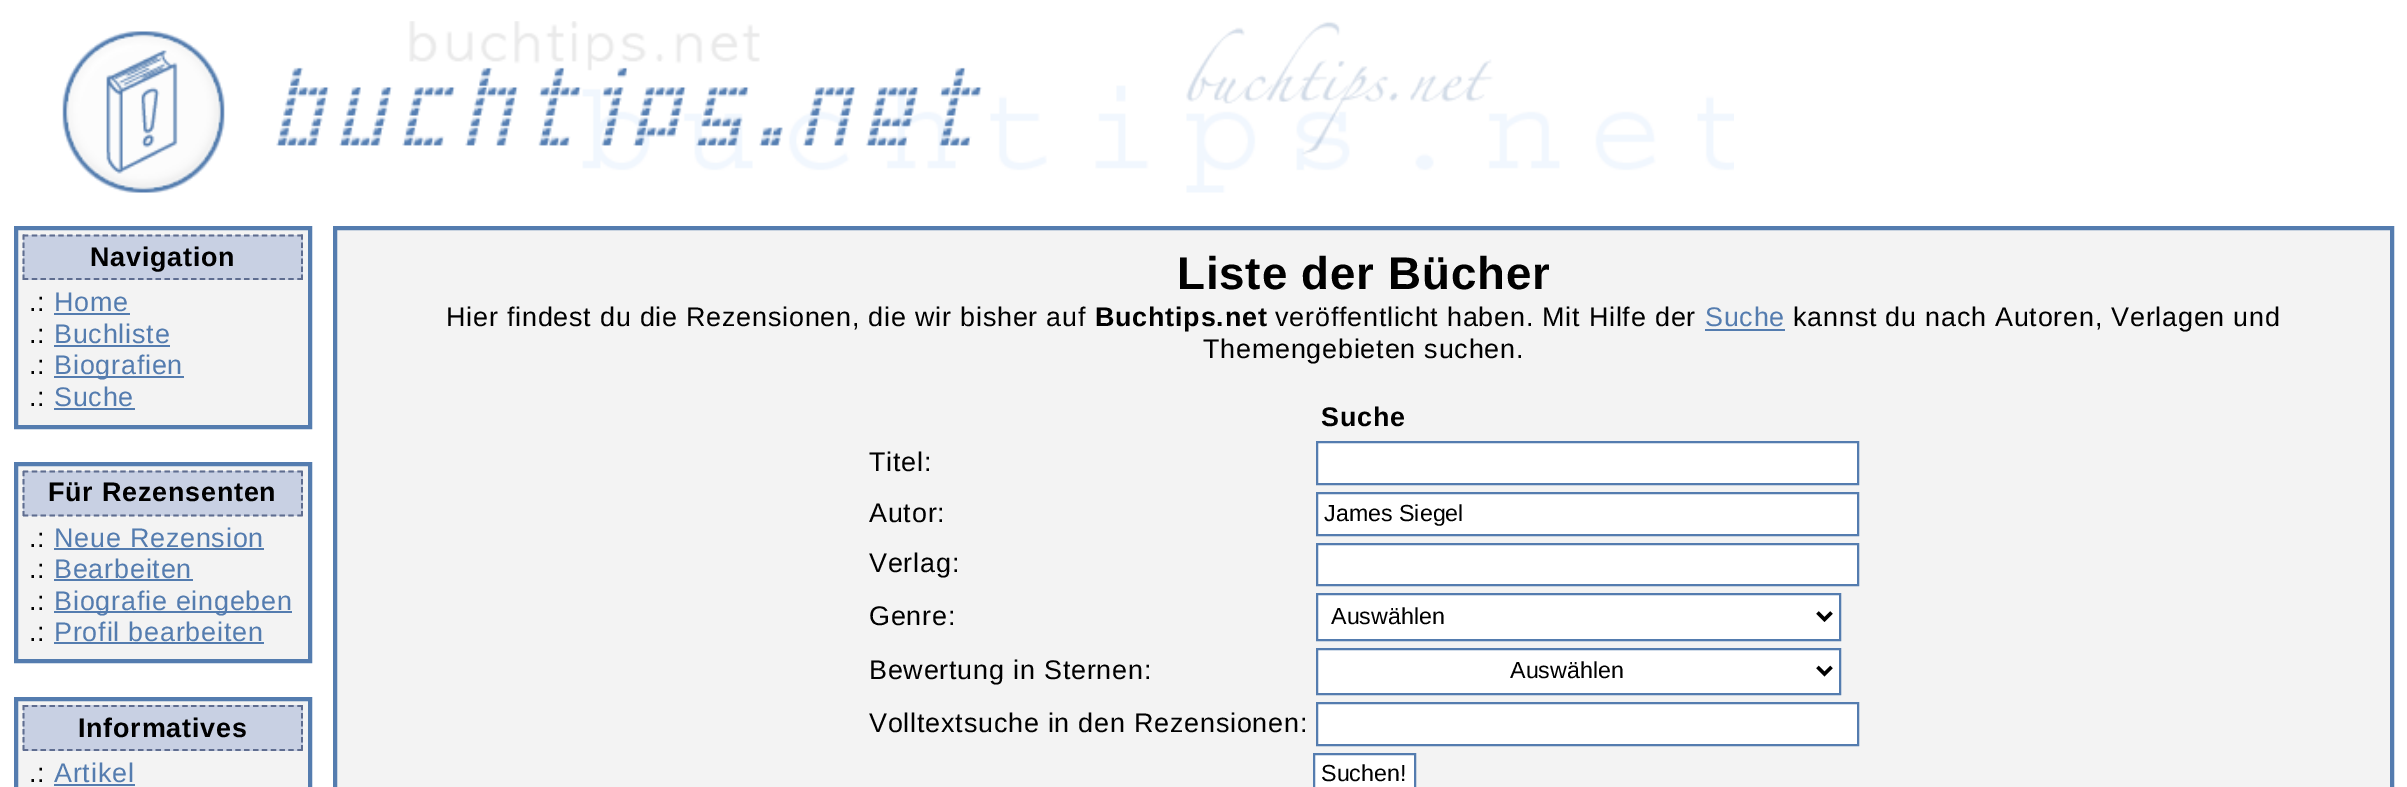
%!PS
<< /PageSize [2407 787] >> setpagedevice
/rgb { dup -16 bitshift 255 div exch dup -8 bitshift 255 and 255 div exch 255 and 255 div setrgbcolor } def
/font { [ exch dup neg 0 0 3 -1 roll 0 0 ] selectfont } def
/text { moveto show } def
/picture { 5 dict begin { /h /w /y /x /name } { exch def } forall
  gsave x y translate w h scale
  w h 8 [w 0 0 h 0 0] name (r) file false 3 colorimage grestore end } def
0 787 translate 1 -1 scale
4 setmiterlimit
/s1 { /LiberationSans-Regular 23.25 font 16#000000 rgb } def
16#FFFFFF rgb
0 0 2407 787 rectfill
(pic1.raw) 62 21 1672 172 picture
16#F3F3F3 rgb
16 228 moveto 310 228 lineto 310 427 lineto 16 427 lineto closepath gsave fill grestore
16#547CAF rgb
4 setlinewidth
stroke
16#C8D0E3 rgb
23 235 280 45 rectfill
16#5F6D90 rgb
1.8 setlinewidth
[5.25 3.6] 0 setdash
23 235.5 moveto 303 235.5 lineto stroke
[5.25 2.8] 0 setdash
302 234.5 moveto 302 280 lineto stroke
[5.25 3.6] 0 setdash
23 279 moveto 303 279 lineto stroke
[5.25 2.8] 0 setdash
23.5 234.5 moveto 23.5 280 lineto stroke
/LiberationSans-Bold 26.9 font
16#000000 rgb
90 266 moveto 0.8 0 (Navigation) ashow
/LiberationSans-Regular 26.9 font
29 311 moveto 0.8 0 (.:) ashow
16#547CAF rgb
54 311 moveto 0.8 0 (Home) ashow
54 313 76 2 rectfill
16#000000 rgb
29 343 moveto 0.8 0 (.:) ashow
16#547CAF rgb
54 343 moveto 0.8 0 (Buchliste) ashow
54 345 116 2 rectfill
16#000000 rgb
29 374 moveto 0.8 0 (.:) ashow
16#547CAF rgb
54 376 130 2 rectfill
54 374 moveto 0.8 0 (Biografien) ashow
16#000000 rgb
29 406 moveto 0.8 0 (.:) ashow
16#547CAF rgb
54 406 moveto 0.8 0 (Suche) ashow
54 408 81 2 rectfill
16#F3F3F3 rgb
16 464 moveto 310 464 lineto 310 661 lineto 16 661 lineto closepath gsave fill grestore
16#547CAF rgb
4 setlinewidth
[] 0 setdash
stroke
16#C8D0E3 rgb
23 471 280 45 rectfill
16#5F6D90 rgb
1.8 setlinewidth
[5.25 3.6] 0 setdash
23 471.5 moveto 303 471.5 lineto stroke
[5.25 2.8] 0 setdash
302 471 moveto 302 516 lineto stroke
[5.25 3.6] 0 setdash
23 515.5 moveto 303 515.5 lineto stroke
[5.25 2.8] 0 setdash
23.5 471 moveto 23.5 516 lineto stroke
/LiberationSans-Bold 26.9 font
16#000000 rgb
48 501 moveto 0.8 0 (Für Rezensenten) ashow
/LiberationSans-Regular 26.9 font
29 547 moveto 0.8 0 (.:) ashow
16#547CAF rgb
54 547 moveto 0.8 0 (Neue Rezension) ashow
54 548 210 2 rectfill
16#000000 rgb
29 578 moveto 0.8 0 (.:) ashow
16#547CAF rgb
54 578 moveto 0.8 0 (Bearbeiten) ashow
54 579 139 2 rectfill
16#000000 rgb
29 610 moveto 0.8 0 (.:) ashow
16#547CAF rgb
54 611 238 2 rectfill
54 610 moveto 0.8 0 (Biografie eingeben) ashow
16#000000 rgb
29 641 moveto 0.8 0 (.:) ashow
16#547CAF rgb
54 641 moveto 0.8 0 (Profil bearbeiten) ashow
54 642 210 2 rectfill
16#F3F3F3 rgb
16 699 moveto 310 699 lineto 310 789 lineto 16 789 lineto closepath gsave fill grestore
16#547CAF rgb
4 setlinewidth
[] 0 setdash
stroke
16#C8D0E3 rgb
23 705 280 46 rectfill
16#5F6D90 rgb
1.8 setlinewidth
[5.25 3.6] 0 setdash
23 706 moveto 303 706 lineto stroke
[5.25 2.8] 0 setdash
302 705 moveto 302 751 lineto stroke
[5.25 3.6] 0 setdash
23 750 moveto 303 750 lineto stroke
[5.25 2.8] 0 setdash
23.5 705 moveto 23.5 751 lineto stroke
/LiberationSans-Bold 26.9 font
16#000000 rgb
78 737 moveto 0.8 0 (Informatives) ashow
/LiberationSans-Regular 26.9 font
29 782 moveto 0.8 0 (.:) ashow
16#547CAF rgb
54 782 moveto 0.8 0 (Artikel) ashow
54 784 81 2 rectfill
16#F3F3F3 rgb
335 228 moveto 2392 228 lineto 2392 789 lineto 335 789 lineto closepath gsave fill grestore
16#547CAF rgb
4 setlinewidth
[] 0 setdash
stroke
/LiberationSans-Bold 45.75 font
16#000000 rgb
1177 289 moveto 0.8 0 (Liste der Bücher) ashow
/LiberationSans-Regular 26.9 font
446 326 moveto 0.8 0 (Hier findest du die Rezensionen, die wir bisher auf) ashow
/LiberationSans-Bold 26.9 font
1095 326 moveto 0.8 0 (Buchtips.net) ashow
/LiberationSans-Regular 26.9 font
1275 326 moveto 0.8 0 (veröffentlicht haben. Mit Hilfe der) ashow
16#547CAF rgb
1705 326 moveto 0.8 0 (Suche) ashow
1705 329 80 2 rectfill
16#000000 rgb
1793 326 moveto 0.8 0 (kannst du nach Autoren, Verlagen und) ashow
1203 358 moveto 0.8 0 (Themengebieten suchen.) ashow
/LiberationSans-Bold 26.9 font
1321 426 moveto 0.8 0 (Suche) ashow
/LiberationSans-Regular 26.9 font
869 471 moveto 0.8 0 (Titel:) ashow
16#FFFFFF rgb
1317 442 moveto 1858 442 lineto 1858 484 lineto 1317 484 lineto closepath gsave fill grestore
16#547CAF rgb
2 setlinewidth
stroke
16#000000 rgb
869 522 moveto 0.8 0 (Autor:) ashow
16#FFFFFF rgb
1317 493 moveto 1858 493 lineto 1858 535 lineto 1317 535 lineto closepath gsave fill grestore
16#547CAF rgb
stroke
s1
(James Siegel) 1324 521 text
/LiberationSans-Regular 26.9 font
869 572 moveto 0.8 0 (Verlag:) ashow
16#FFFFFF rgb
1317 544 moveto 1858 544 lineto 1858 585 lineto 1317 585 lineto closepath gsave fill grestore
16#547CAF rgb
stroke
16#000000 rgb
869 625 moveto 0.8 0 (Genre:) ashow
16#FFFFFF rgb
1317 594 moveto 1840 594 lineto 1840 640 lineto 1317 640 lineto closepath gsave fill grestore
16#547CAF rgb
stroke
16#000000 rgb
3.5 setlinewidth
1817.5 612.5 moveto 1824.5 619.5 lineto 1831.5 612.5 lineto stroke
s1
(Auswählen) 1331 624 text
/LiberationSans-Regular 26.9 font
869 679 moveto 0.8 0 (Bewertung in Sternen:) ashow
16#FFFFFF rgb
1317 649 moveto 1840 649 lineto 1840 694 lineto 1317 694 lineto closepath gsave fill grestore
16#547CAF rgb
2 setlinewidth
stroke
16#000000 rgb
3.5 setlinewidth
1817.5 667 moveto 1824.5 674 lineto 1831.5 667 lineto stroke
s1
(Auswählen) 1510 678 text
/LiberationSans-Regular 26.9 font
869 732 moveto 0.8 0 (Volltextsuche in den Rezensionen:) ashow
16#FFFFFF rgb
1317 703 moveto 1858 703 lineto 1858 745 lineto 1317 745 lineto closepath gsave fill grestore
16#547CAF rgb
2 setlinewidth
stroke
16#FFFFFF rgb
1314 754 moveto 1415 754 lineto 1415 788 lineto 1314 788 lineto closepath gsave fill grestore
16#547CAF rgb
stroke
s1
(Suchen!) 1321 781 text
showpage
